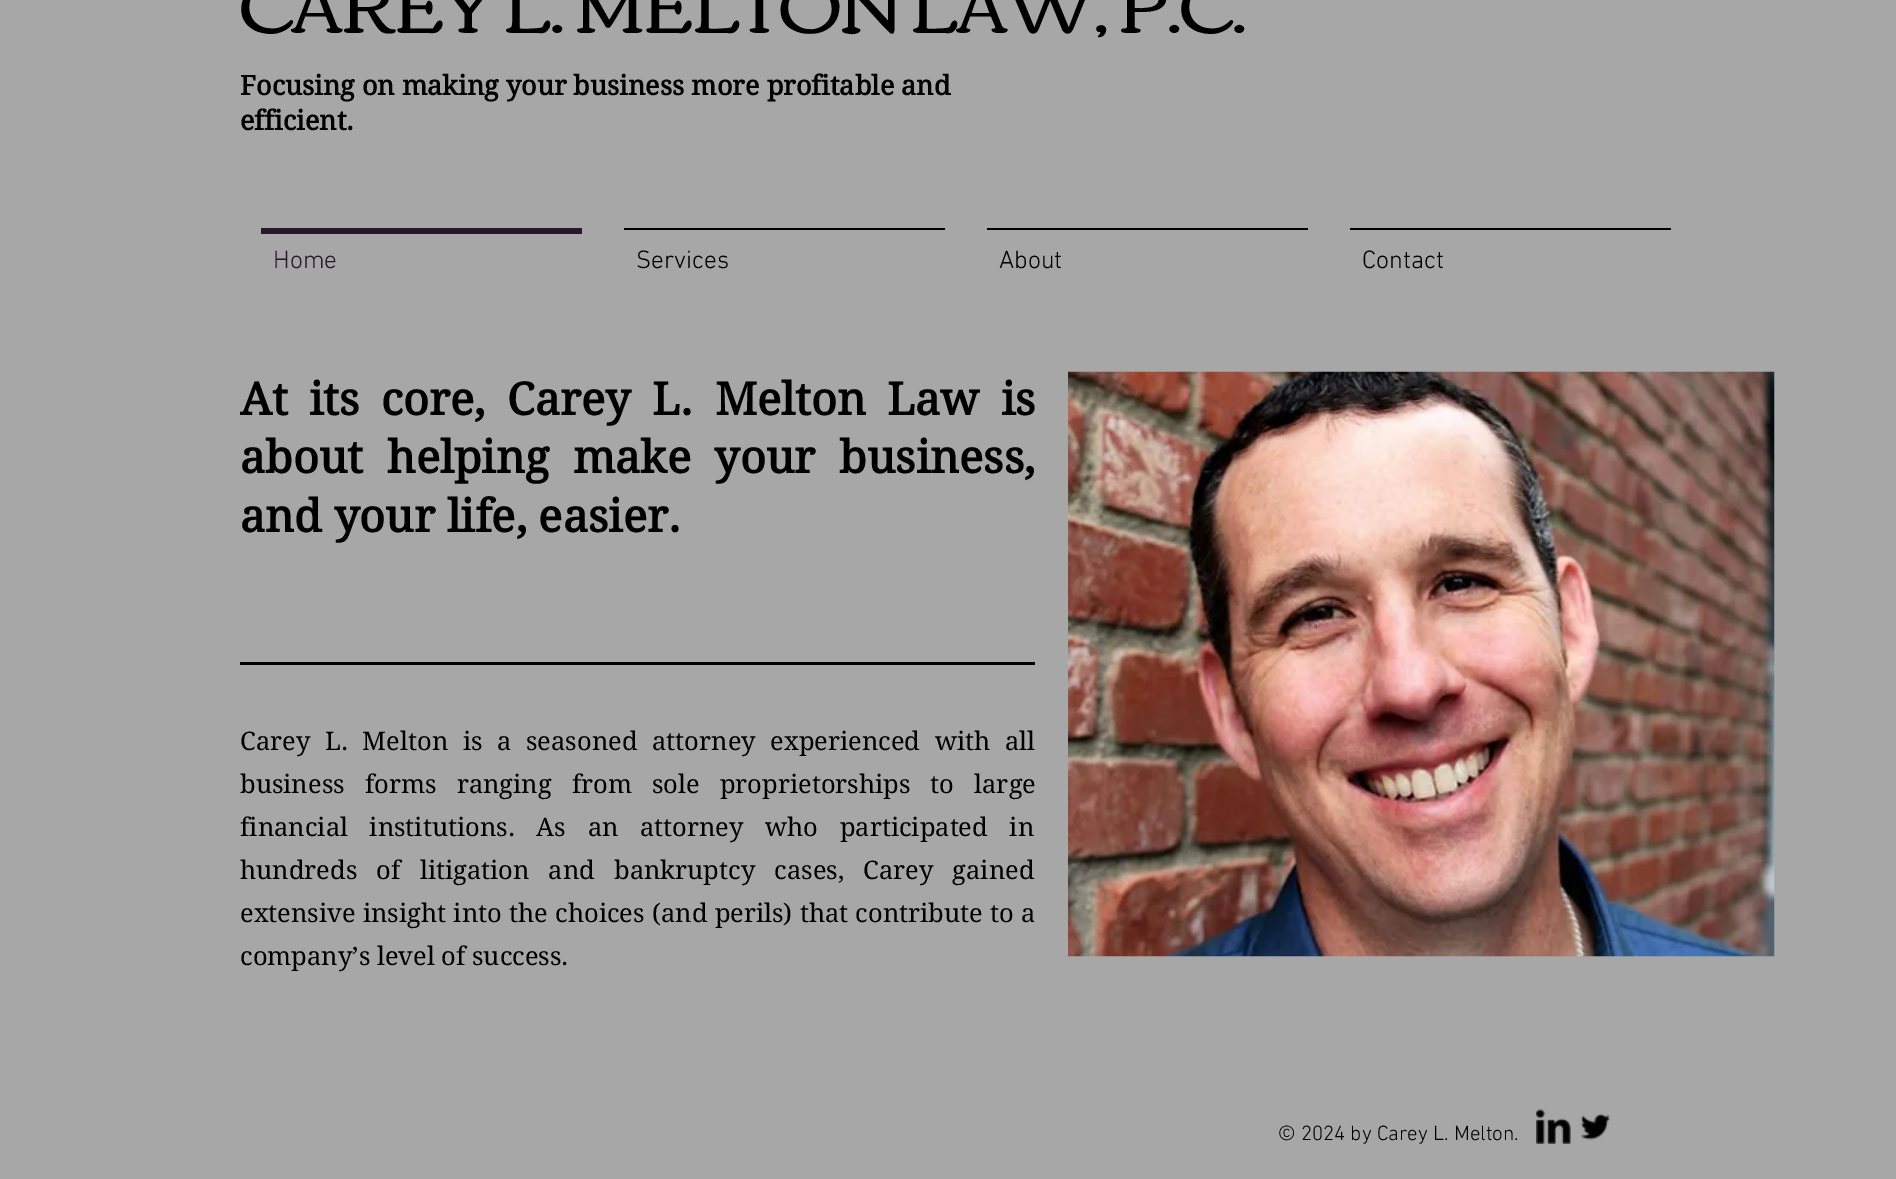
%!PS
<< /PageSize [1896 1179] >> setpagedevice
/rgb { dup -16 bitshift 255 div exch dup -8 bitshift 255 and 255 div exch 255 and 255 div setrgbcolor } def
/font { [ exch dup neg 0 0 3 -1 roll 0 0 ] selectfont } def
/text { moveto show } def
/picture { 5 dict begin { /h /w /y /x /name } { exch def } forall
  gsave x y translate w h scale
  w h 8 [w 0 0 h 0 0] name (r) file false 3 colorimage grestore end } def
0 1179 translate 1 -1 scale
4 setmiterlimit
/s1 { /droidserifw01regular-Bold 27 font 16#000000 rgb } def
/s2 { /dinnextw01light-Light 25.5 font 16#27192A rgb } def
/s3 { /dinnextw01light-Light 25.5 font 16#000000 rgb } def
/s4 { /droidserifw01regular-Bold 45 font 16#000000 rgb } def
/s5 { /droidserifw01regular-Regular 25.5 font 16#000000 rgb } def
/s6 { /dinnextw01light-Light 21 font 16#000000 rgb } def
16#A7A7A7 rgb
0 0 1896 1179 rectfill
/Corben-Regular 72 font
16#000000 rgb
240 33 moveto -2.1 0 (CAREY L. MELTON LAW, P.C.) ashow
s1
(Focusing on making your business more profitable and) 240 95 text
(efficient.) 240 130 text
16#27192A rgb
261 228 321 6 rectfill
s2
(Home) 273 268 text
16#000000 rgb
624 228 321 2 rectfill
(Services) 636 268 text
987 228 321 2 rectfill
(About) 999 268 text
1350 228 321 2 rectfill
(Contact) 1362 268 text
/droidserifw01regular-Bold 45 font
240 415 moveto 9.75 0 32 (At its core, Carey L. Melton Law is) widthshow
240 473 moveto 12 0 32 (about helping make your business,) widthshow
(and your life, easier.) 240 532 text
/droidserifw01regular-Regular 25.5 font
240 750 moveto 8 0 32 (Carey L. Melton is a seasoned attorney experienced with all) widthshow
240 793 moveto 13.5 0 32 (business forms ranging from sole proprietorships to large) widthshow
240 836 moveto 15 0 32 (financial institutions. As an attorney who participated in) widthshow
240 879 moveto 12.5 0 32 (hundreds of litigation and bankruptcy cases, Carey gained) widthshow
240 922 moveto 0.75 0 32 (extensive insight into the choices \(and perils\) that contribute to a) widthshow
(company’s level of success.) 240 965 text
(pic1.raw) 1068 371 707 586 picture
240 662 795 3 rectfill
s6
(© 2024 by Carey L. Melton.) 1278 1140 text
(pic2.raw) 1536 1109 35 35 picture
(pic3.raw) 1580 1113 30 27 picture
showpage
